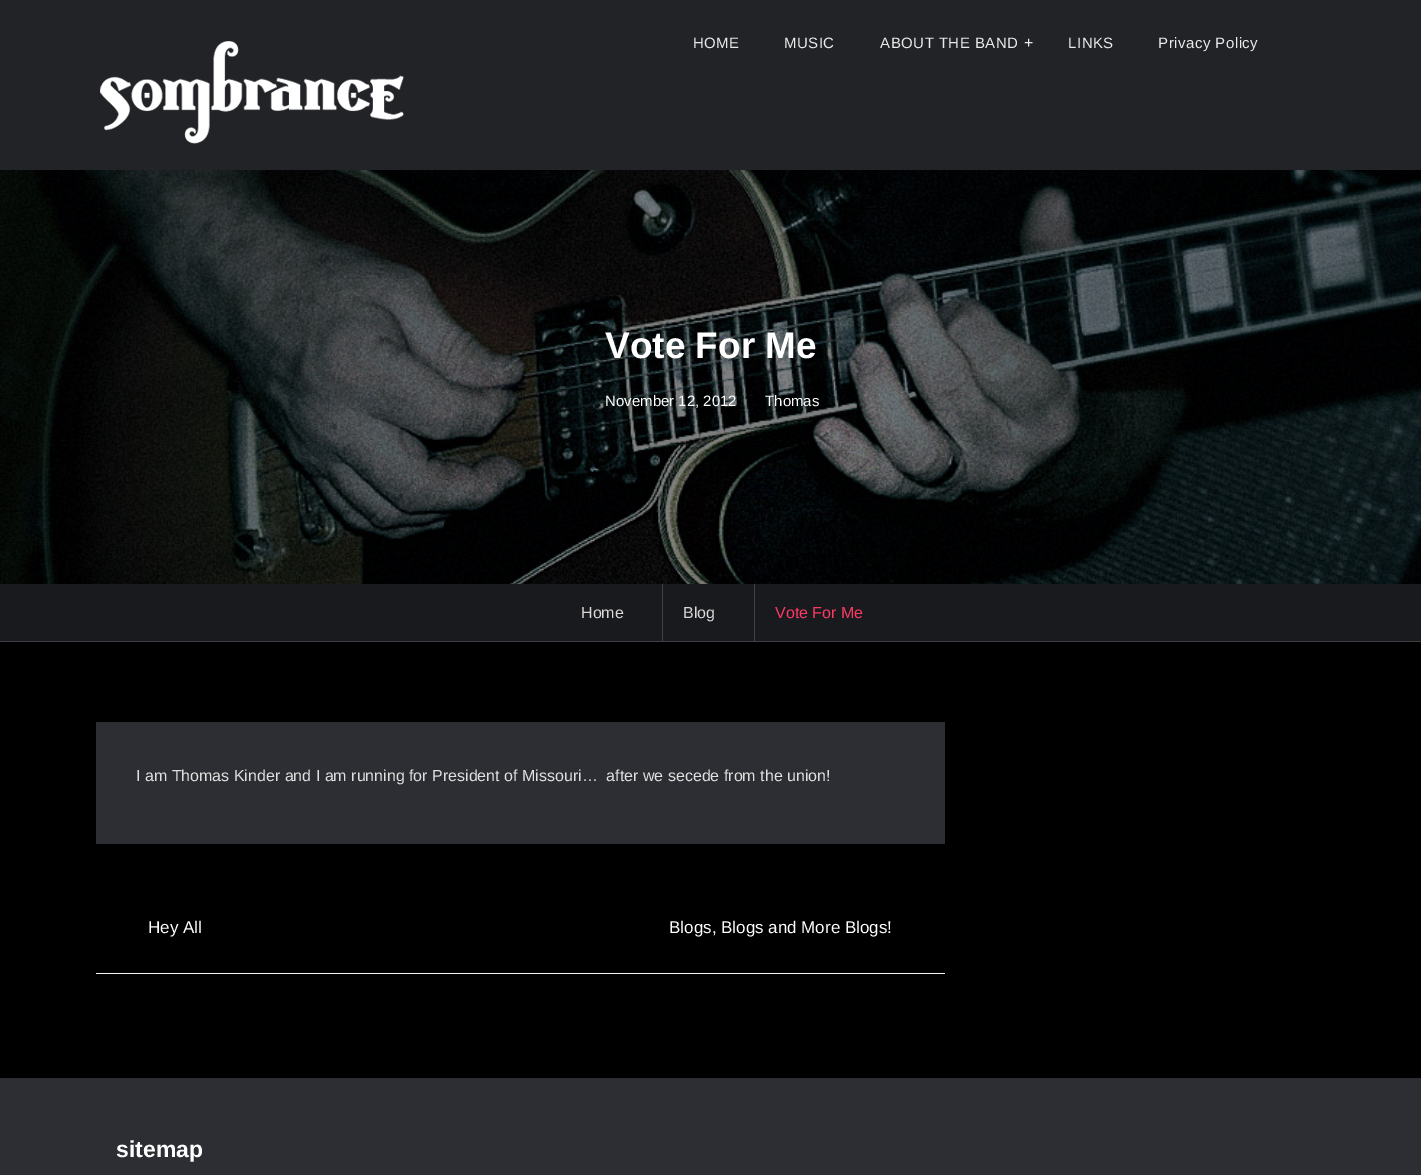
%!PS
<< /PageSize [1421 1175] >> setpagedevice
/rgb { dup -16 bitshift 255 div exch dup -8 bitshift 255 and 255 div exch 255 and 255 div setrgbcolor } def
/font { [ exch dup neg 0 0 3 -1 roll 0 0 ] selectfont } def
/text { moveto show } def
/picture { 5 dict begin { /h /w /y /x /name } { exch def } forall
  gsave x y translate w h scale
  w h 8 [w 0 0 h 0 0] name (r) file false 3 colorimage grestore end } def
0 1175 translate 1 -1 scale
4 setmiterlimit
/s1 { /LiberationSans-Bold 37 font 16#FFFFFF rgb } def
/s2 { /LiberationSans-Regular 15 font 16#FFFFFF rgb } def
/s3 { /LiberationSans-Regular 16 font 16#DAD8D8 rgb } def
/s4 { /LiberationSans-Regular 16 font 16#FB3A64 rgb } def
/s5 { /LiberationSans-Regular 16 font 16#E0E0E0 rgb } def
/s6 { /LiberationSans-Regular 17 font 16#FFFFFF rgb } def
/s7 { /LiberationSans-Bold 23 font 16#FFFFFF rgb } def
16#000000 rgb
0 0 1421 1175 rectfill
16#212327 rgb
0 0 1421 170 rectfill
(pic1.raw) 100 41 304 103 picture
/LiberationSans-Regular 15 font
16#EAEAEA rgb
693 48 moveto 0.5 0 (HOME) ashow
784 48 moveto 0.5 0 (MUSIC) ashow
880 48 moveto 0.5 0 (ABOUT THE BAND) ashow
/LiberationSans-Regular 16 font
1024 48 moveto 0.5 0 (+) ashow
/LiberationSans-Regular 15 font
1068 48 moveto 0.5 0 (LINKS) ashow
1158 48 moveto 0.5 0 (Privacy Policy) ashow
(pic2.raw) 0 170 1421 414 picture
s1
(Vote For Me) 605 358 text
s2
(November 12, 2012) 605 406 text
(Thomas) 765 406 text
16#191A1E rgb
0 584 1421 57 rectfill
16#3E3F42 rgb
0 641 1421 1 rectfill
16#424346 rgb
662 584 1 57 rectfill
s3
(Home) 581 618 text
16#424346 rgb
754 584 1 57 rectfill
s3
(Blog) 683 618 text
s4
(Vote For Me) 775 618 text
16#2C2E33 rgb
96 722 849 122 rectfill
s5
(I am Thomas Kinder and I am running for President of Missouri…  after we secede from the union!) 136 781 text
16#F7F7F7 rgb
96 973 849 1 rectfill
s6
(Hey All) 148 933 text
(Blogs, Blogs and More Blogs!) 669 933 text
16#2C2E33 rgb
0 1078 1421 97 rectfill
s7
(sitemap) 116 1157 text
showpage
